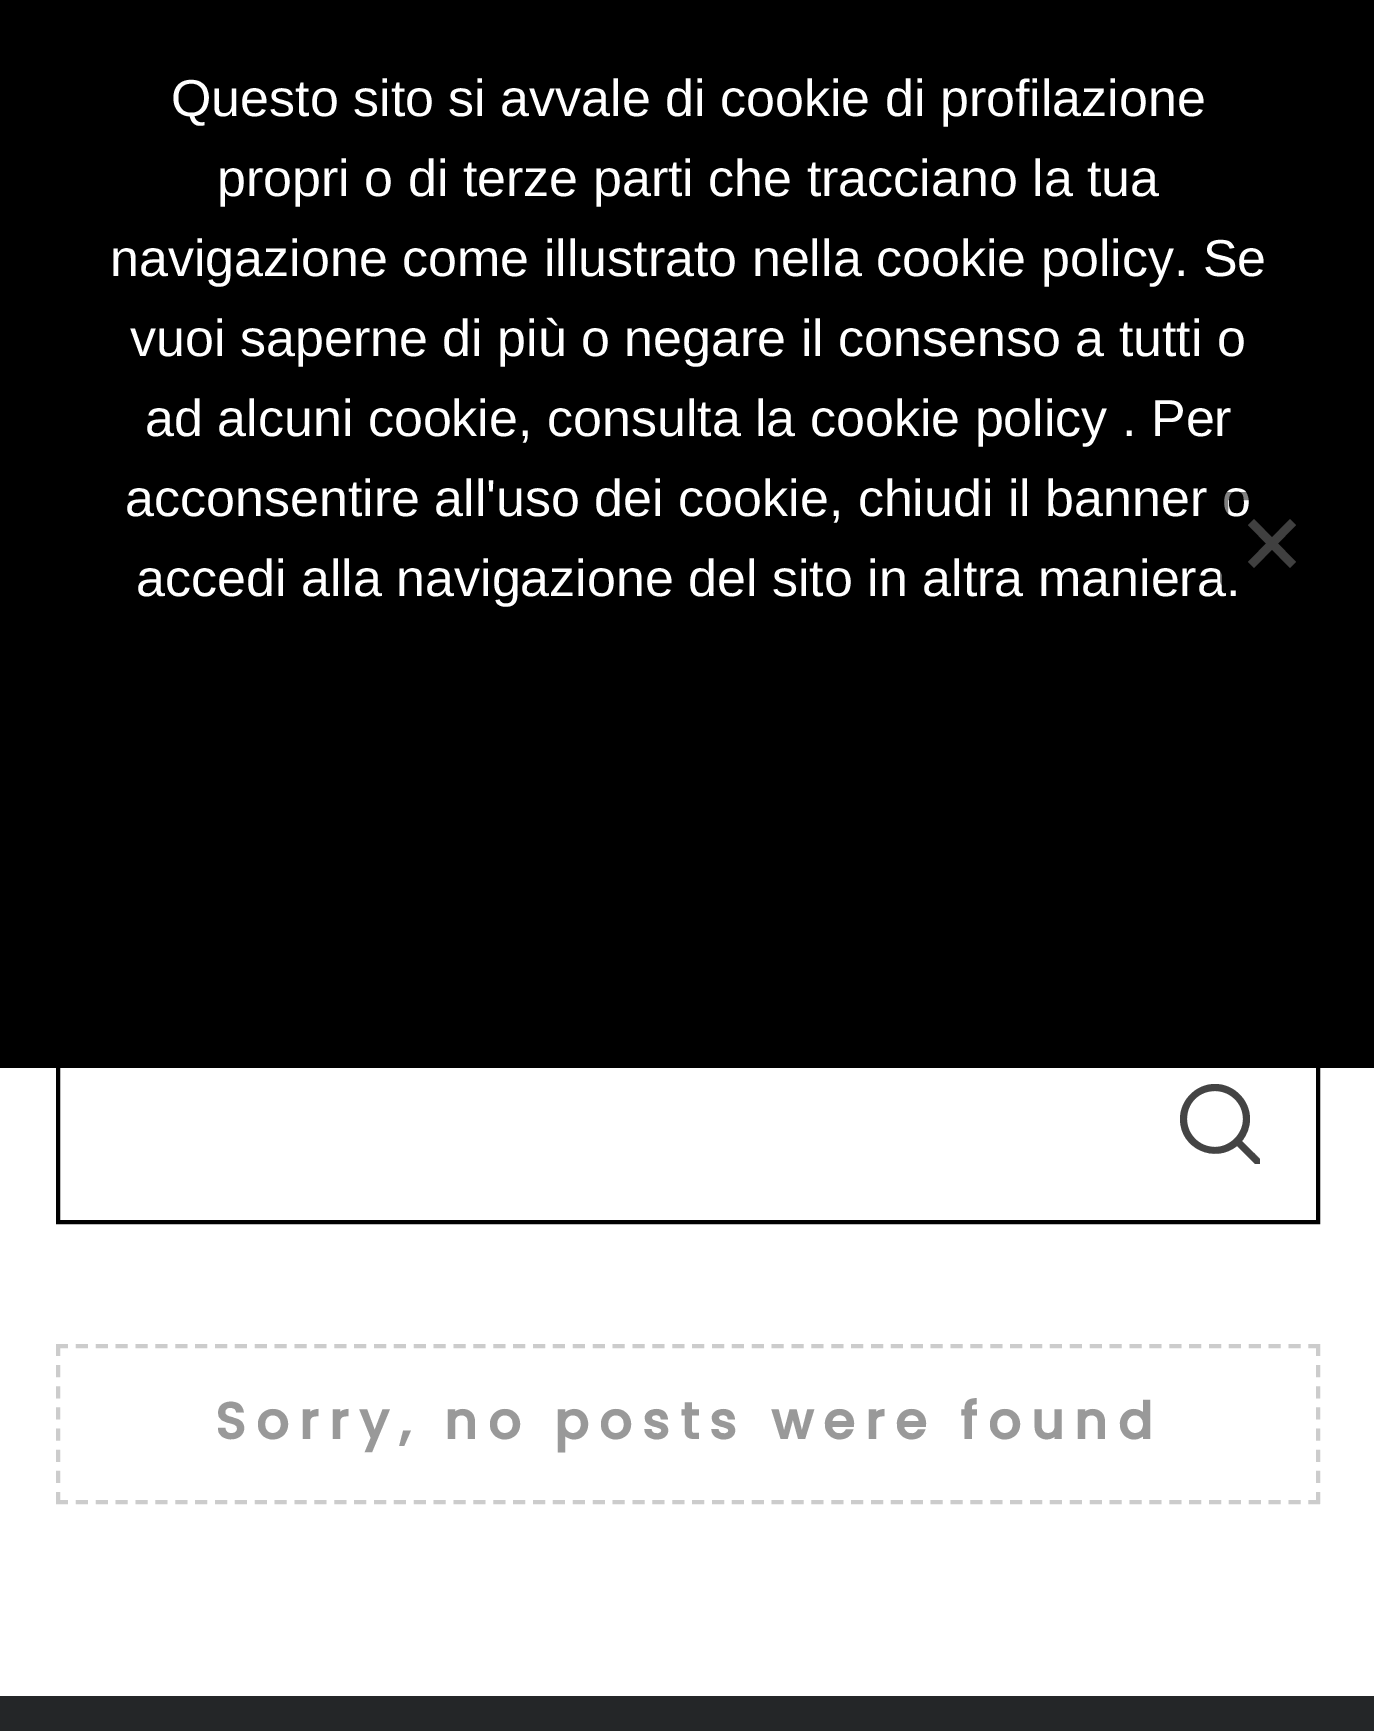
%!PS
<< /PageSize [1374 1731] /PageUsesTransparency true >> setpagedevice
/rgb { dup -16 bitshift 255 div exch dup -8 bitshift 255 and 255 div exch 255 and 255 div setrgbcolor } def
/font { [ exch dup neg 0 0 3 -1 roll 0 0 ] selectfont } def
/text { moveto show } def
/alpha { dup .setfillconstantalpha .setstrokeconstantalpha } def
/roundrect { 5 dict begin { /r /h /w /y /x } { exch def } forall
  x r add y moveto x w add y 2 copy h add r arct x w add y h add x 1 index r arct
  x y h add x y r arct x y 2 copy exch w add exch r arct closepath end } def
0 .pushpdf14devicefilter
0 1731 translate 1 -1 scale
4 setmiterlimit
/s1 { /LiberationSans-Regular 52 font 16#FFFFFF rgb } def
16#FFFFFF rgb
0 0 1374 1731 rectfill
16#000000 rgb
4 setlinewidth
58 1026 1260 196 rectstroke
0 0 1374 1068 rectfill
s1
(Questo sito si avvale di cookie di profilazione) 171 116 text
(propri o di terze parti che tracciano la tua) 217 196 text
(navigazione come illustrato nella cookie policy. Se) 110 276 text
(vuoi saperne di più o negare il consenso a tutti o) 130 356 text
(ad alcuni cookie, consulta la cookie policy . Per) 145 436 text
(acconsentire all'uso dei cookie, chiudi il banner o) 125 516 text
(accedi alla navigazione del sito in altra maniera.) 136 596 text
0.5 alpha
16#000000 rgb
8 setlinewidth
1224 496 88 88 4 roundrect stroke
1 alpha
16#404040 rgb
1290 519 moveto 1296 525 lineto 1254 568 lineto 1248 562 lineto closepath fill
1248 525 moveto 1254 519 lineto 1296 562 lineto 1290 568 lineto closepath fill
gsave
1180 1084 80 80 rectclip
16#444444 rgb
1180 1119 moveto 1180 1149 1215 1164 1237 1146 curveto 1265 1174 lineto 1270 1169 lineto 1242 1141 lineto 1247 1135 1250 1127 1250 1119 curveto 1250 1100 1234 1084 1215 1084 curveto 1196 1084 1180 1100 1180 1119 curveto closepath 1187 1119 moveto 1187 1103 1199 1091 1215 1091 curveto 1230 1091 1243 1103 1243 1119 curveto 1243 1134 1230 1147 1215 1147 curveto 1199 1147 1187 1134 1187 1119 curveto closepath fill
grestore
16#CCCCCC rgb
4 setlinewidth
[12 7.88] 0 setdash
56 1346 moveto 1320 1346 lineto stroke
[12 9.16] 0 setdash
1318 1344 moveto 1318 1504 lineto stroke
[12 7.88] 0 setdash
56 1502 moveto 1320 1502 lineto stroke
[12 9.16] 0 setdash
58 1344 moveto 58 1504 lineto stroke
/Poppins-Bold 51.25 font
16#999999 rgb
215 1439 moveto 10.25 0 (Sorry, no posts were found) ashow
16#242628 rgb
0 1696 1374 35 rectfill
.poppdf14devicefilter showpage
